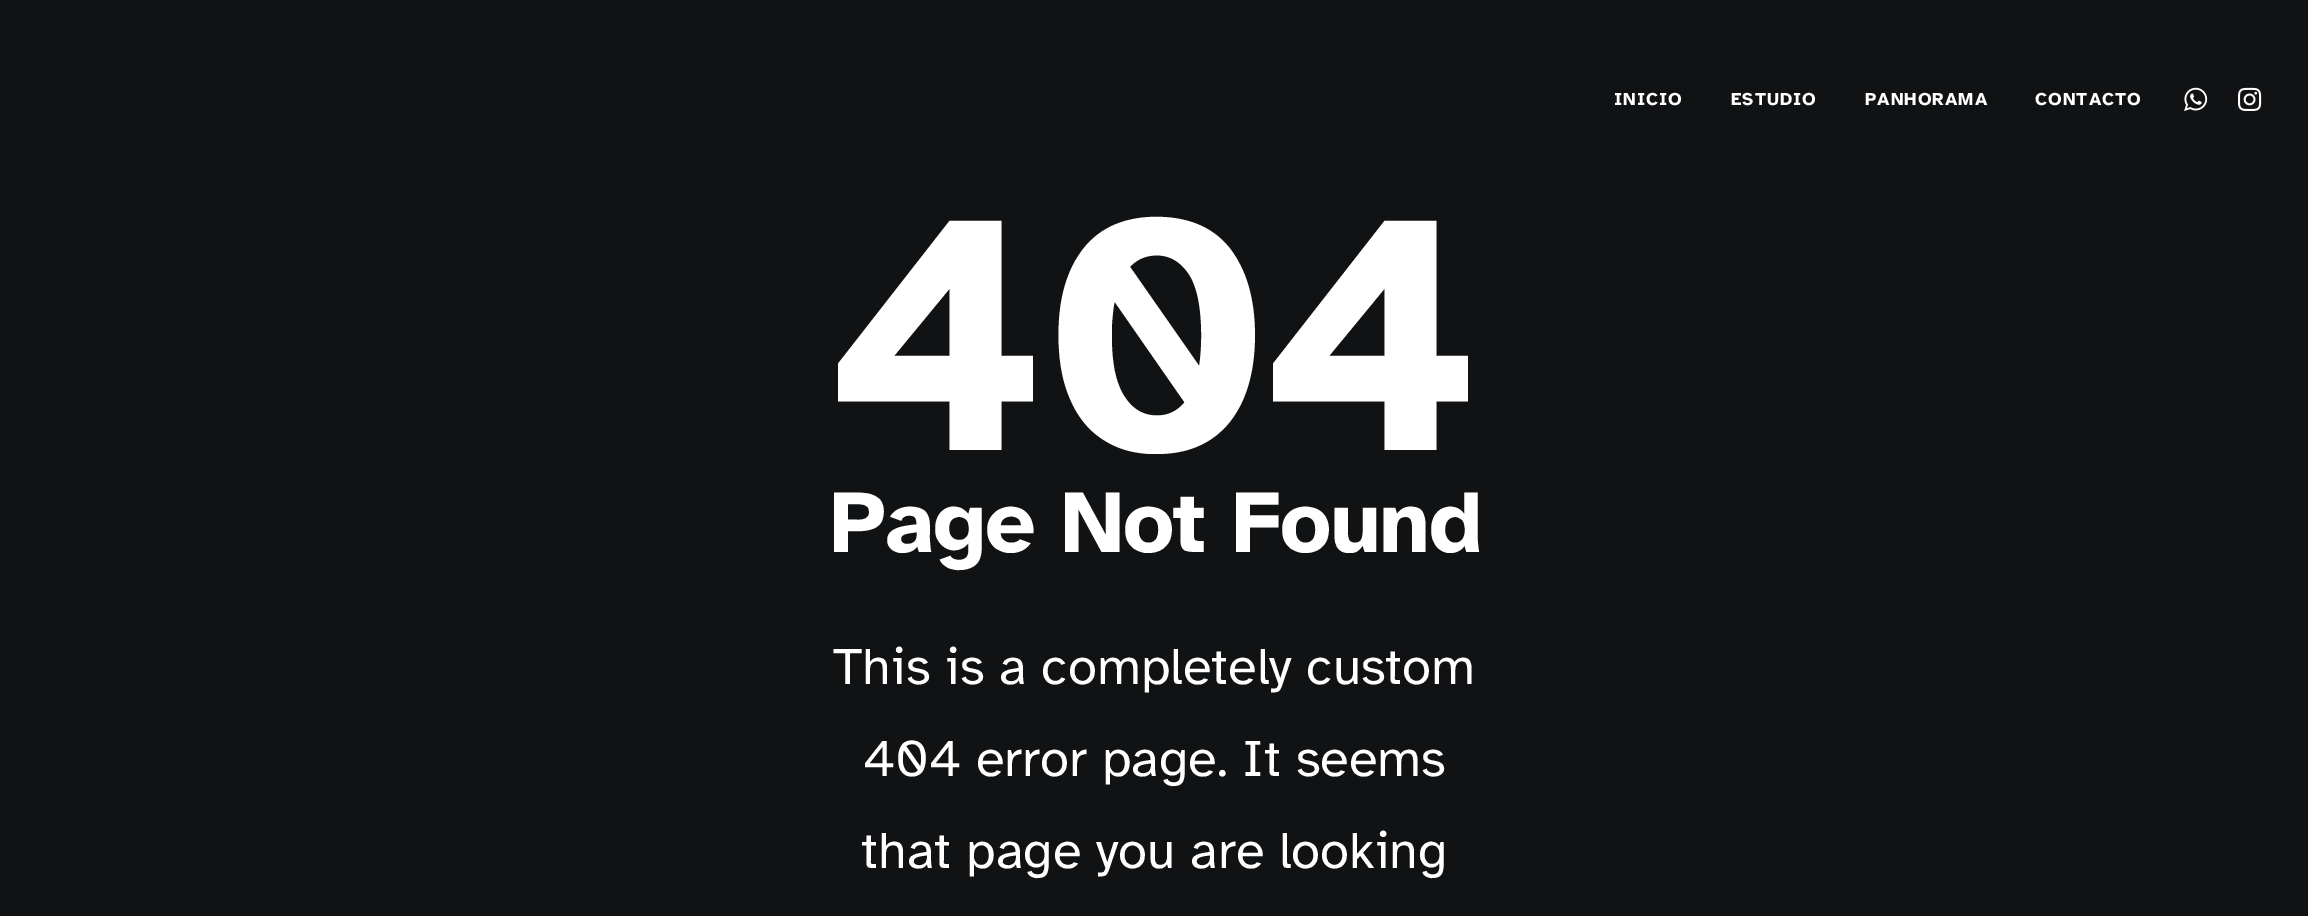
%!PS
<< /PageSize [2308 916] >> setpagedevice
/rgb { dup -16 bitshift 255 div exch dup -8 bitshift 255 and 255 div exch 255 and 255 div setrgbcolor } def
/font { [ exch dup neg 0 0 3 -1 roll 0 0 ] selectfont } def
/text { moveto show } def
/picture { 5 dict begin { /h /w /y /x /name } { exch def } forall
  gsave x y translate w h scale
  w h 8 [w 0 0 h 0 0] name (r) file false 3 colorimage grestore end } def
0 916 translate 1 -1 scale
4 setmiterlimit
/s1 { /AtkinsonHyperlegible-Regular 52.5 font 16#FFFFFF rgb } def
16#101213 rgb
0 0 2308 916 rectfill
/AtkinsonHyperlegible-Bold 18 font
16#FFFFFF rgb
1614 105 moveto 1 0 (INICIO) ashow
1731 105 moveto 1 0 (ESTUDIO) ashow
1865 105 moveto 1 0 (PANHORAMA) ashow
2035 105 moveto 1 0 (CONTACTO) ashow
(pic1.raw) 2184 87 24 24 picture
(pic2.raw) 2238 87 24 24 picture
/AtkinsonHyperlegible-Bold 344 font
830 450 moveto -2.5 0 (404) ashow
/AtkinsonHyperlegible-Bold 89.25 font
830 552 moveto -1.25 0 (Page Not Found) ashow
s1
(This is a completely custom) 833 684 text
(404 error page. It seems) 863 776 text
(that page you are looking) 861 868 text
showpage
